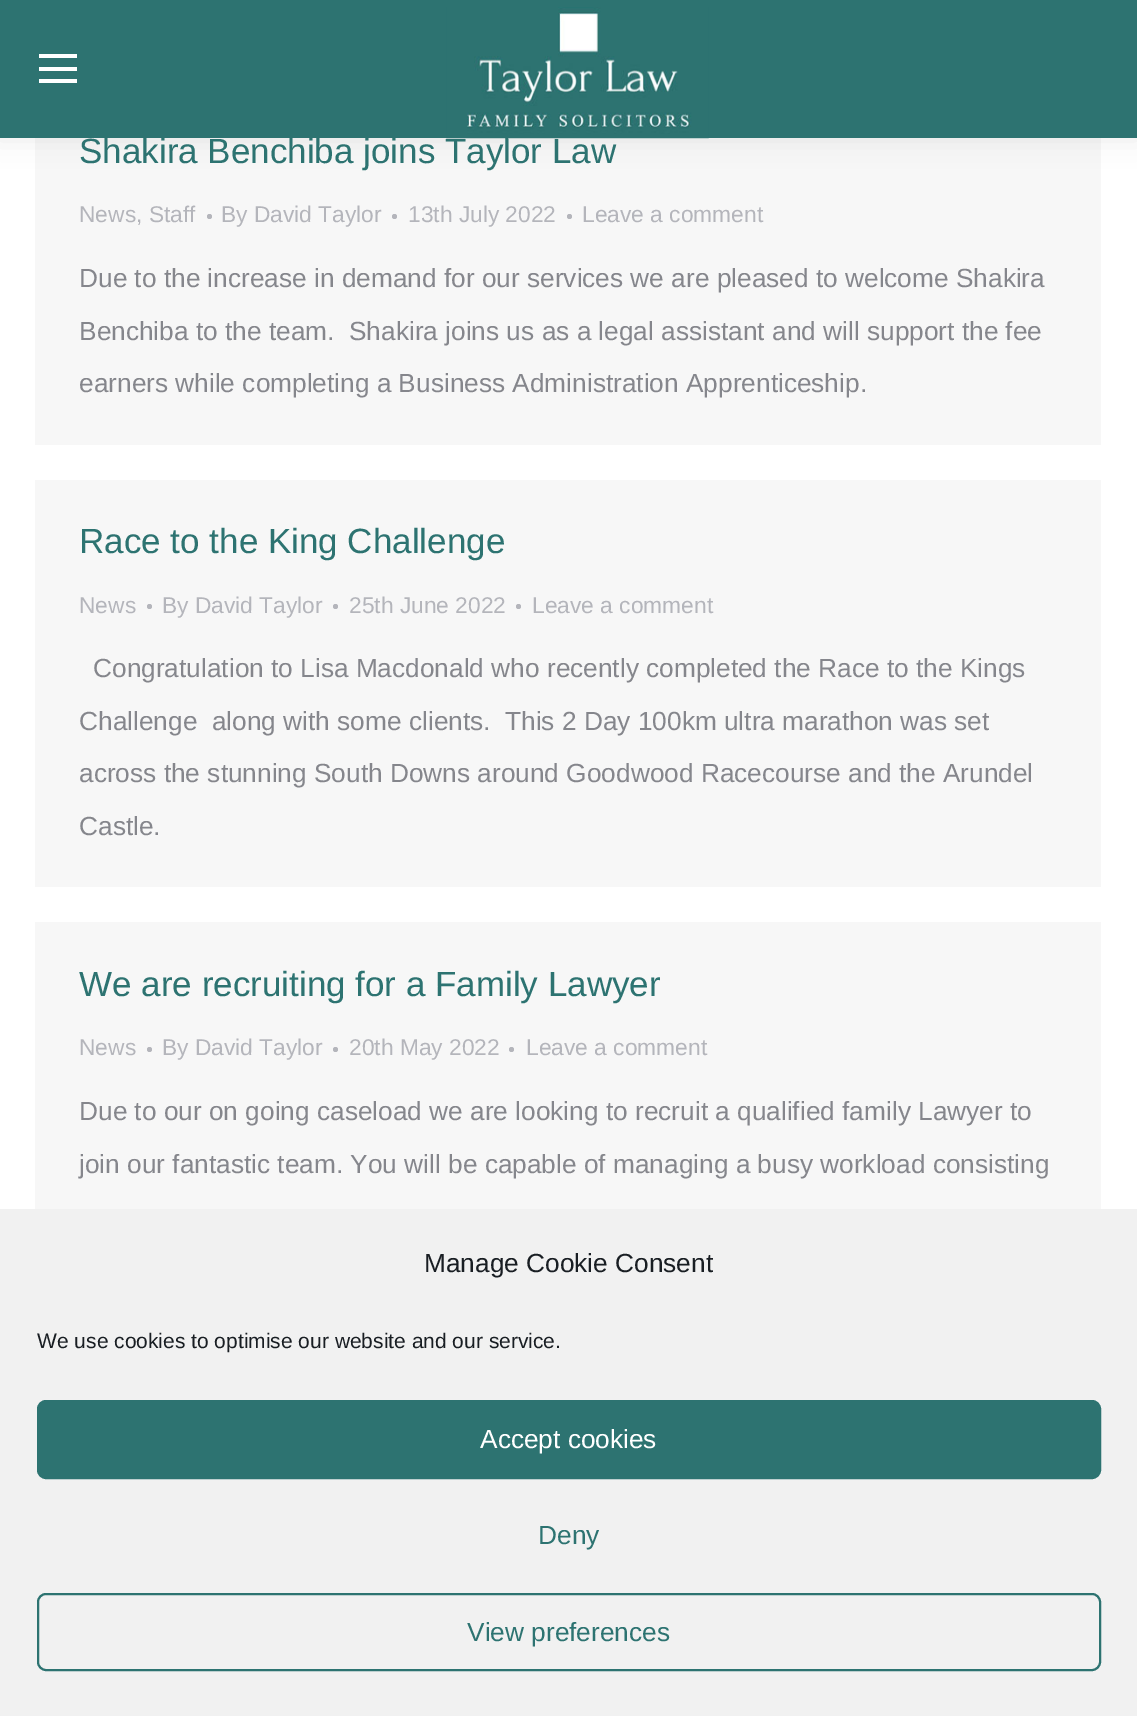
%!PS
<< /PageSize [1137 1716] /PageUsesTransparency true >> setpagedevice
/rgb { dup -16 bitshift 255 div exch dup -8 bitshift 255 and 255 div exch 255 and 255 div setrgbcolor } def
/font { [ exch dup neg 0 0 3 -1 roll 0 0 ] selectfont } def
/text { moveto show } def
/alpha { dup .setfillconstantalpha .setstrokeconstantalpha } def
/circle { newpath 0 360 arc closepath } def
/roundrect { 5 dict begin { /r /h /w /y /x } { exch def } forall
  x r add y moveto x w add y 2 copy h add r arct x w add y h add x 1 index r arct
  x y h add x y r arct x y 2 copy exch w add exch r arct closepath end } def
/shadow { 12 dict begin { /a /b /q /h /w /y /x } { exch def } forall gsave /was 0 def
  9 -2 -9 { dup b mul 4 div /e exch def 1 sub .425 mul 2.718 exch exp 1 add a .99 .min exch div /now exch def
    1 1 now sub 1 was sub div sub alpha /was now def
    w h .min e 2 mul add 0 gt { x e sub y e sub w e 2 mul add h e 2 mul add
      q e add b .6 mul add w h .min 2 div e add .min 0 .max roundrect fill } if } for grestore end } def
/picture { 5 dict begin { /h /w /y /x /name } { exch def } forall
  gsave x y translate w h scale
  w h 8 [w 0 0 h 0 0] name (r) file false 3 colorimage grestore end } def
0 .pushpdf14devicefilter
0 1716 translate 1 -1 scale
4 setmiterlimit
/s1 { /LiberationSans-Regular 35 font 16#2D7371 rgb } def
/s2 { /LiberationSans-Regular 22.75 font 16#B4B5BB rgb } def
/s3 { /LiberationSans-Regular 26.25 font 16#85868C rgb } def
/s4 { /LiberationSans-Regular 26.25 font 16#191E23 rgb } def
/s5 { /LiberationSans-Regular 21 font 16#191E23 rgb } def
/s6 { /LiberationSans-Regular 26.25 font 16#FFFFFF rgb } def
/s7 { /LiberationSans-Regular 26.25 font 16#2D7371 rgb } def
16#FFFFFF rgb
0 0 1137 1716 rectfill
16#F7F7F7 rgb
35 138 1066 307 rectfill
16#000000 rgb
-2 -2 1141 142 0 13 0.07 shadow
16#2D7371 rgb
0 0 1137 138 rectfill
16#FFFFFF rgb
39 54 38 4 rectfill
39 67 38 4 rectfill
39 79 38 4 rectfill
s1
(Shakira Benchiba joins Taylor Law) 79 163 text
(pic1.raw) 446 7 263 132 picture
s2
(News, Staff) 79 222 text
209.5 216.5 2.5 circle fill
(By David Taylor) 221 222 text
394.5 216.5 2.5 circle fill
(13th July 2022) 408 222 text
569.5 216.5 2.5 circle fill
(Leave a comment) 582 222 text
s3
(Due to the increase in demand for our services we are pleased to welcome Shakira) 79 287 text
(Benchiba to the team.  Shakira joins us as a legal assistant and will support the fee) 79 340 text
(earners while completing a Business Administration Apprenticeship.) 79 392 text
16#F7F7F7 rgb
35 480 1066 407 rectfill
s1
(Race to the King Challenge) 79 553 text
s2
(News) 79 613 text
149.5 606.5 2.5 circle fill
(By David Taylor) 162 613 text
335.5 606.5 2.5 circle fill
(25th June 2022) 349 613 text
518.5 606.5 2.5 circle fill
(Leave a comment) 532 613 text
s3
(Congratulation to Lisa Macdonald who recently completed the Race to the Kings) 93 677 text
(Challenge  along with some clients.  This 2 Day 100km ultra marathon was set) 79 730 text
(across the stunning South Downs around Goodwood Racecourse and the Arundel) 79 782 text
(Castle.) 79 835 text
16#F7F7F7 rgb
35 922 1066 287 rectfill
s1
(We are recruiting for a Family Lawyer) 79 996 text
s2
(News) 79 1055 text
149.5 1049.5 2.5 circle fill
(By David Taylor) 162 1055 text
335.5 1049.5 2.5 circle fill
(20th May 2022) 349 1055 text
511.5 1049.5 2.5 circle fill
(Leave a comment) 526 1055 text
s3
(Due to our on going caseload we are looking to recruit a qualified family Lawyer to) 79 1120 text
(join our fantastic team. You will be capable of managing a busy workload consisting) 79 1173 text
16#F1F1F1 rgb
0 1209 1137 507 rectfill
s4
(Manage Cookie Consent) 424 1272 text
s5
(We use cookies to optimise our website and our service.) 37 1348 text
16#2D7371 rgb
38 1401 1062 77 8 roundrect gsave fill grestore
2 setlinewidth
stroke
s6
(Accept cookies) 480 1448 text
s7
(Deny) 538 1544 text
38 1594 1062 76 8 roundrect stroke
(View preferences) 467 1641 text
.poppdf14devicefilter showpage
